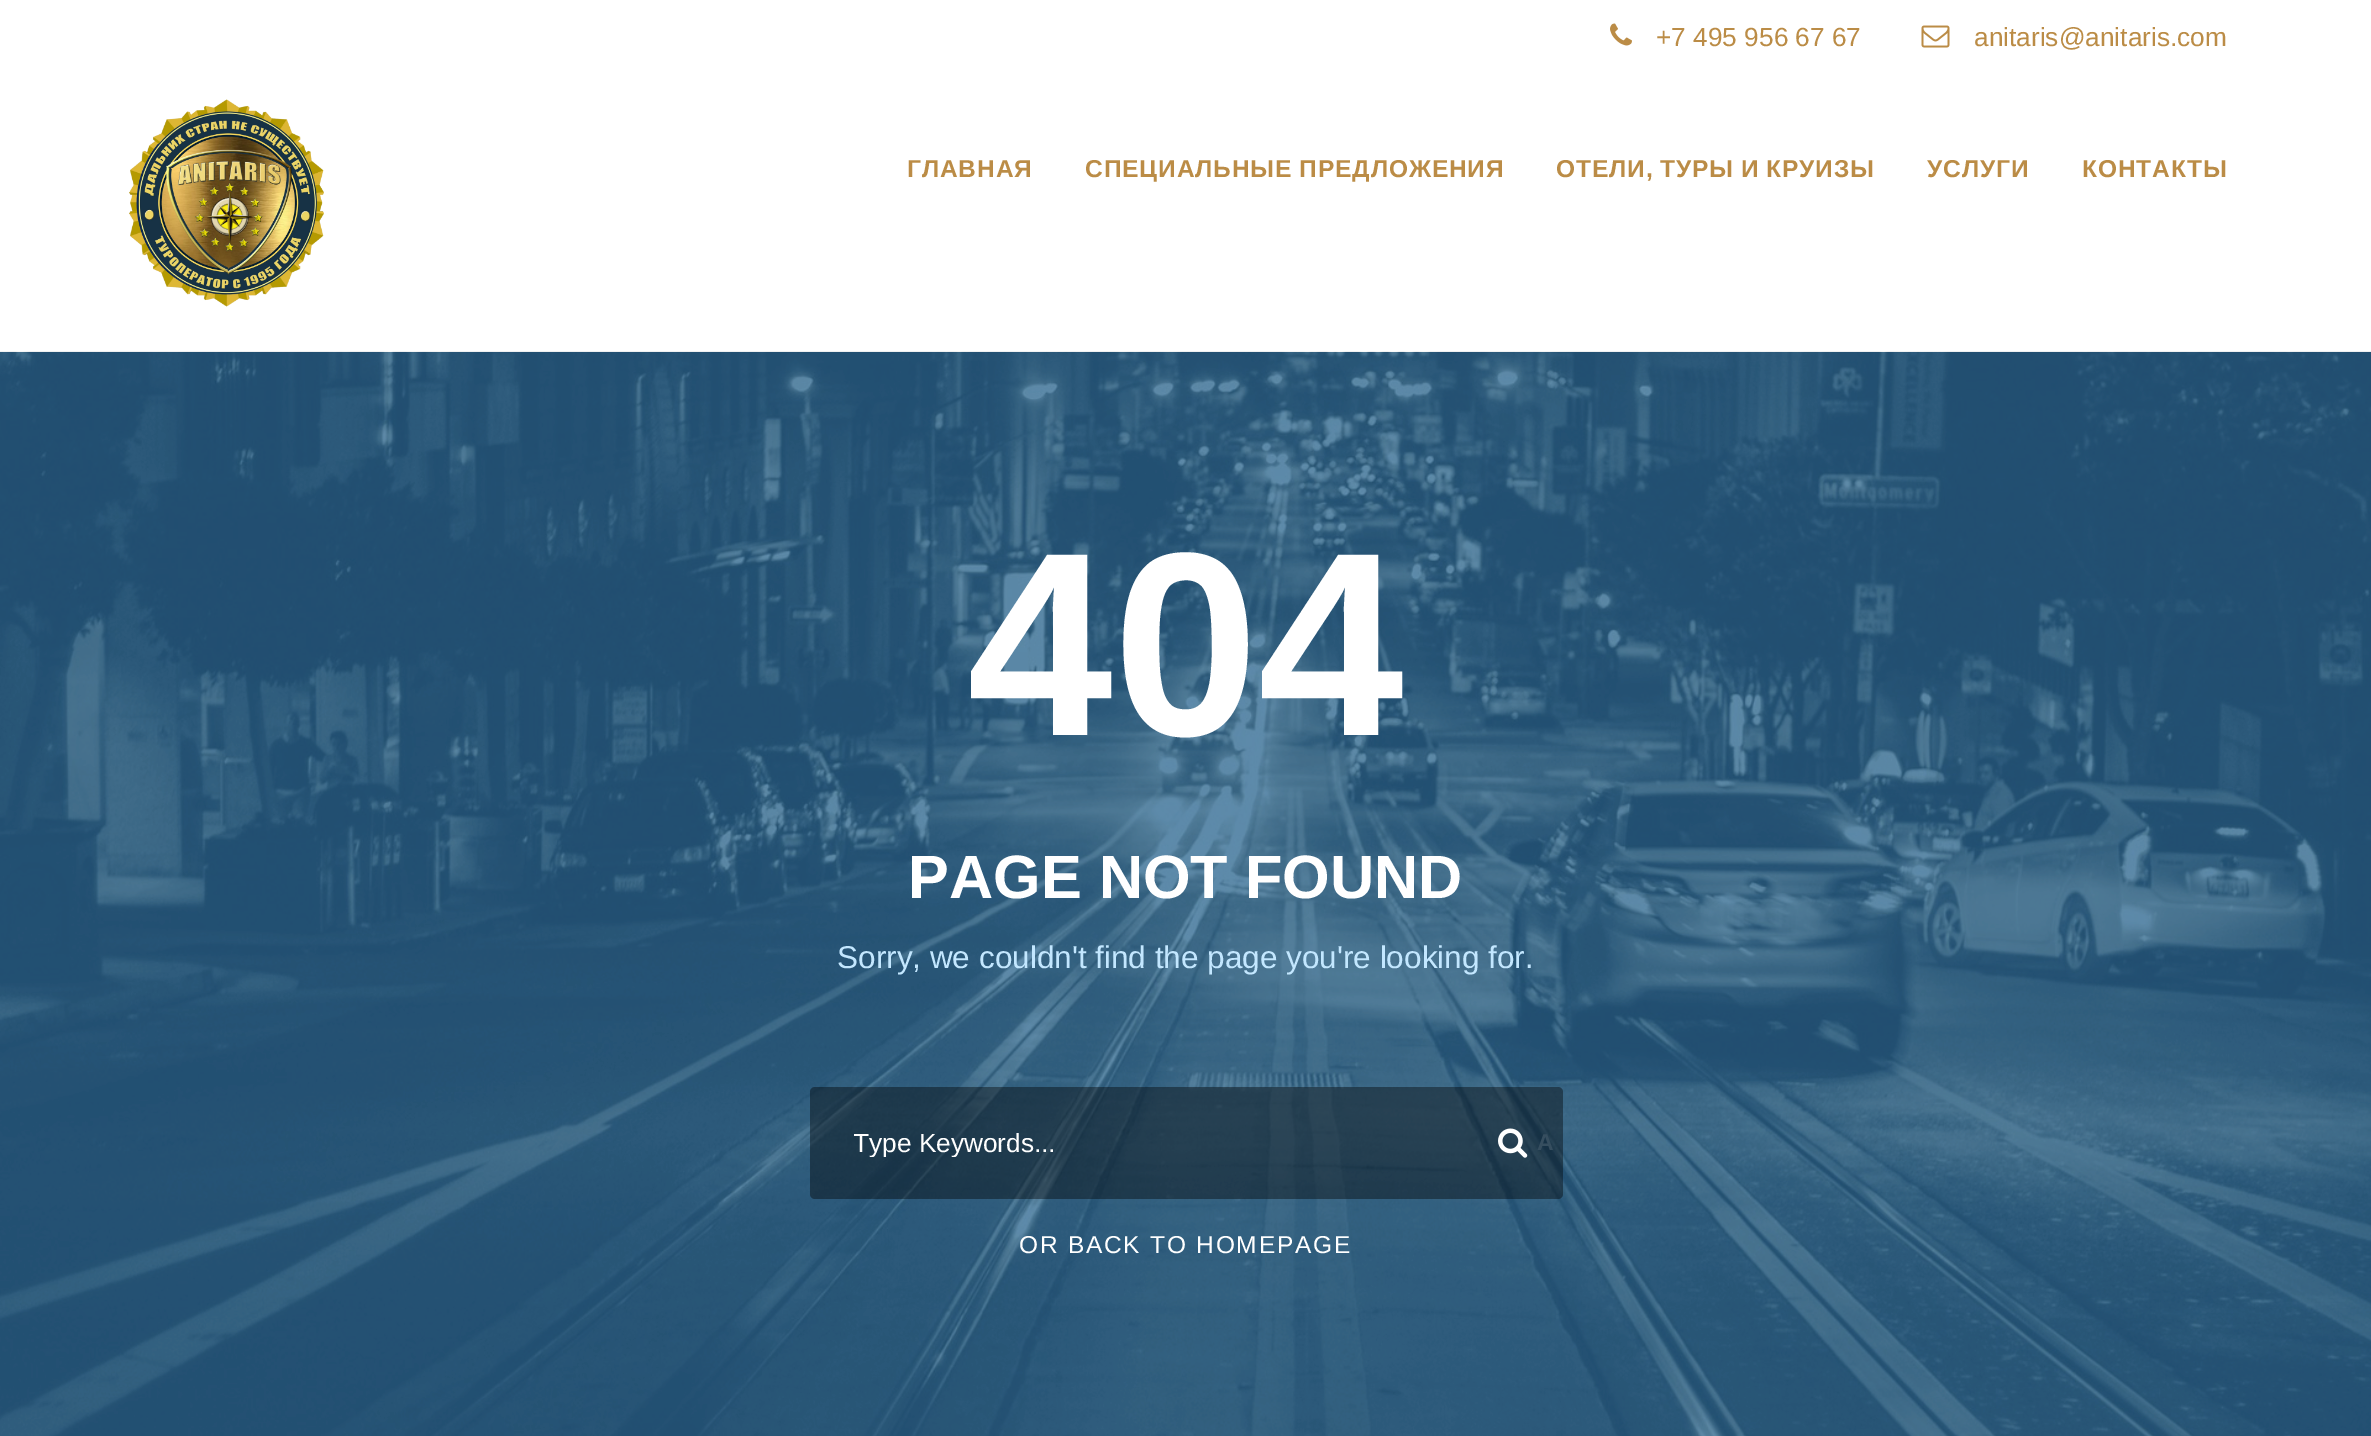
%!PS
<< /PageSize [2371 1436] /PageUsesTransparency true >> setpagedevice
/rgb { dup -16 bitshift 255 div exch dup -8 bitshift 255 and 255 div exch 255 and 255 div setrgbcolor } def
/font { [ exch dup neg 0 0 3 -1 roll 0 0 ] selectfont } def
/text { moveto show } def
/alpha { dup .setfillconstantalpha .setstrokeconstantalpha } def
/roundrect { 5 dict begin { /r /h /w /y /x } { exch def } forall
  x r add y moveto x w add y 2 copy h add r arct x w add y h add x 1 index r arct
  x y h add x y r arct x y 2 copy exch w add exch r arct closepath end } def
/picture { 5 dict begin { /h /w /y /x /name } { exch def } forall
  gsave x y translate w h scale
  w h 8 [w 0 0 h 0 0] name (r) file false 3 colorimage grestore end } def
0 .pushpdf14devicefilter
0 1436 translate 1 -1 scale
4 setmiterlimit
/s1 { /LiberationSans-Regular 26.25 font 16#BB8C46 rgb } def
/s2 { /LiberationSans-Bold 262 font 16#FFFFFF rgb } def
/s3 { /LiberationSans-Bold 61.25 font 16#FFFFFF rgb } def
/s4 { /LiberationSans-Regular 31.5 font 16#C3E7FF rgb } def
/s5 { /LiberationSans-Regular 26.25 font 16#FFFFFF rgb } def
16#FFFFFF rgb
0 0 2371 1436 rectfill
(pic1.raw) 1610 23 22 23 picture
s1
(+7 495 956 67 67) 1656 46 text
(pic2.raw) 1921 25 29 23 picture
(anitaris@anitaris.com) 1974 46 text
(pic3.raw) 129 99 195 208 picture
/LiberationSans-Bold 24.5 font
907 177 moveto 0.9 0 (ГЛАВНАЯ) ashow
1085 177 moveto -1 0 32 0.9 0 (СПЕЦИАЛЬНЫЕ ПРЕДЛОЖЕНИЯ) awidthshow
1556 177 moveto -1 0 32 0.9 0 (ОТЕЛИ, ТУРЫ И КРУИЗЫ) awidthshow
1927 177 moveto 0.9 0 (УСЛУГИ) ashow
2082 177 moveto 0.9 0 (КОНТАКТЫ) ashow
16#23618E rgb
0 352 2371 1084 rectfill
(pic4.raw) 0 351 2371 1085 picture
s2
(404) 967 735 text
s3
(PAGE NOT FOUND) 908 898 text
s4
(Sorry, we couldn't find the page you're looking for.) 837 968 text
0.4 alpha
16#000000 rgb
810 1087 753 112 5 roundrect fill
gsave
854 1127 604 30 rectclip
1 alpha
s5
(Type Keywords...) 853 1152 text
grestore
1 alpha
(pic5.raw) 1498 1128 30 30 picture
/LiberationSans-Bold 23 font
16#364E5F rgb
1537 1150 moveto 1 0 (A) ashow
/LiberationSans-Regular 24.5 font
16#FFFFFF rgb
1019 1253 moveto 1.75 0 (OR BACK TO HOMEPAGE) ashow
.poppdf14devicefilter showpage
